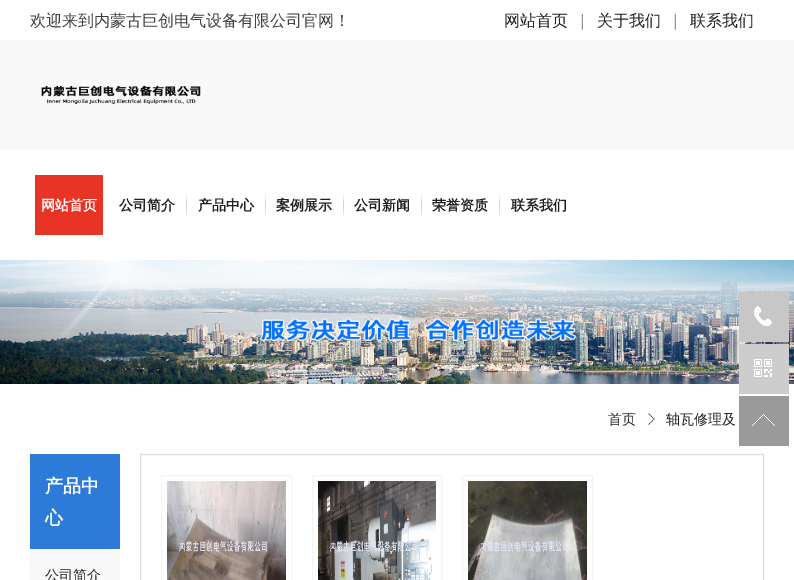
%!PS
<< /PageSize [794 580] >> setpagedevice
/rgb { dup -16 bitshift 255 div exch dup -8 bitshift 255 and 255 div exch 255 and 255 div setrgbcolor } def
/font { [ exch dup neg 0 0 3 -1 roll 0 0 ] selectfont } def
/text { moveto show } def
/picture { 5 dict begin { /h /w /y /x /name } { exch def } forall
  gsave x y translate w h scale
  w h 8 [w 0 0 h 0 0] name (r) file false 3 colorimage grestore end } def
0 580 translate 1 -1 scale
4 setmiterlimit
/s1 { /WenQuanYiZenHei-Medium 16 font 16#404040 rgb } def
/s2 { /WenQuanYiZenHei-Medium 16 font 16#202020 rgb } def
/s3 { /OpenSans-Regular 16 font 16#999999 rgb } def
/s4 { /WenQuanYiZenHei-Bold 14 font 16#FFFFFF rgb } def
/s5 { /WenQuanYiZenHei-Bold 14 font 16#202020 rgb } def
/s6 { /WenQuanYiZenHei-Medium 14 font 16#202020 rgb } def
/s7 { /WenQuanYiZenHei-Bold 18 font 16#FFFFFF rgb } def
16#FFFFFF rgb
0 0 794 580 rectfill
s1
(欢迎来到内蒙古巨创电气设备有限公司官网！) 30 26 text
s2
(网站首页) 504 26 text
s3
(|) 578 26 text
s2
(关于我们) 597 26 text
s3
(|) 671 26 text
s2
(联系我们) 690 26 text
16#F9F9F9 rgb
0 40 794 110 rectfill
(pic1.raw) 41 85 160 19 picture
16#E83426 rgb
35 175 68 60 rectfill
s4
(网站首页) 41 210 text
s5
(公司简介) 119 210 text
(pic2.raw) 186 193 1 24 picture
(产品中心) 198 210 text
(pic2.raw) 265 193 1 24 picture
(案例展示) 276 210 text
(pic2.raw) 343 193 1 24 picture
(公司新闻) 354 210 text
(pic2.raw) 421 193 1 24 picture
(荣誉资质) 432 210 text
(pic2.raw) 499 193 1 24 picture
(联系我们) 511 210 text
(pic3.raw) 0 260 794 124 picture
16#B5B5B5 rgb
739 292 50 50 rectfill
(pic4.raw) 739 292 50 50 picture
739 344 50 50 rectfill
(pic5.raw) 739 344 50 50 picture
16#797979 rgb
739 396 50 50 rectfill
(pic6.raw) 739 396 50 50 picture
s6
(首页) 608 424 text
(pic7.raw) 648 413 7 12 picture
(轴瓦修理及) 666 424 text
16#2C7BD8 rgb
30 454 90 95 rectfill
s7
(产品中) 45 492 text
(心) 45 524 text
16#F8F8F9 rgb
30 550 90 30 rectfill
s6
(公司简介) 45 580 text
16#DDDDDD rgb
140.5 454.5 623 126 rectstroke
16#F4F4F4 rgb
161.5 475.5 130 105 rectstroke
(pic8.raw) 167 481 119 99 picture
312.5 475.5 129 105 rectstroke
(pic9.raw) 318 481 118 99 picture
462.5 475.5 130 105 rectstroke
(pic10.raw) 468 481 119 99 picture
showpage
